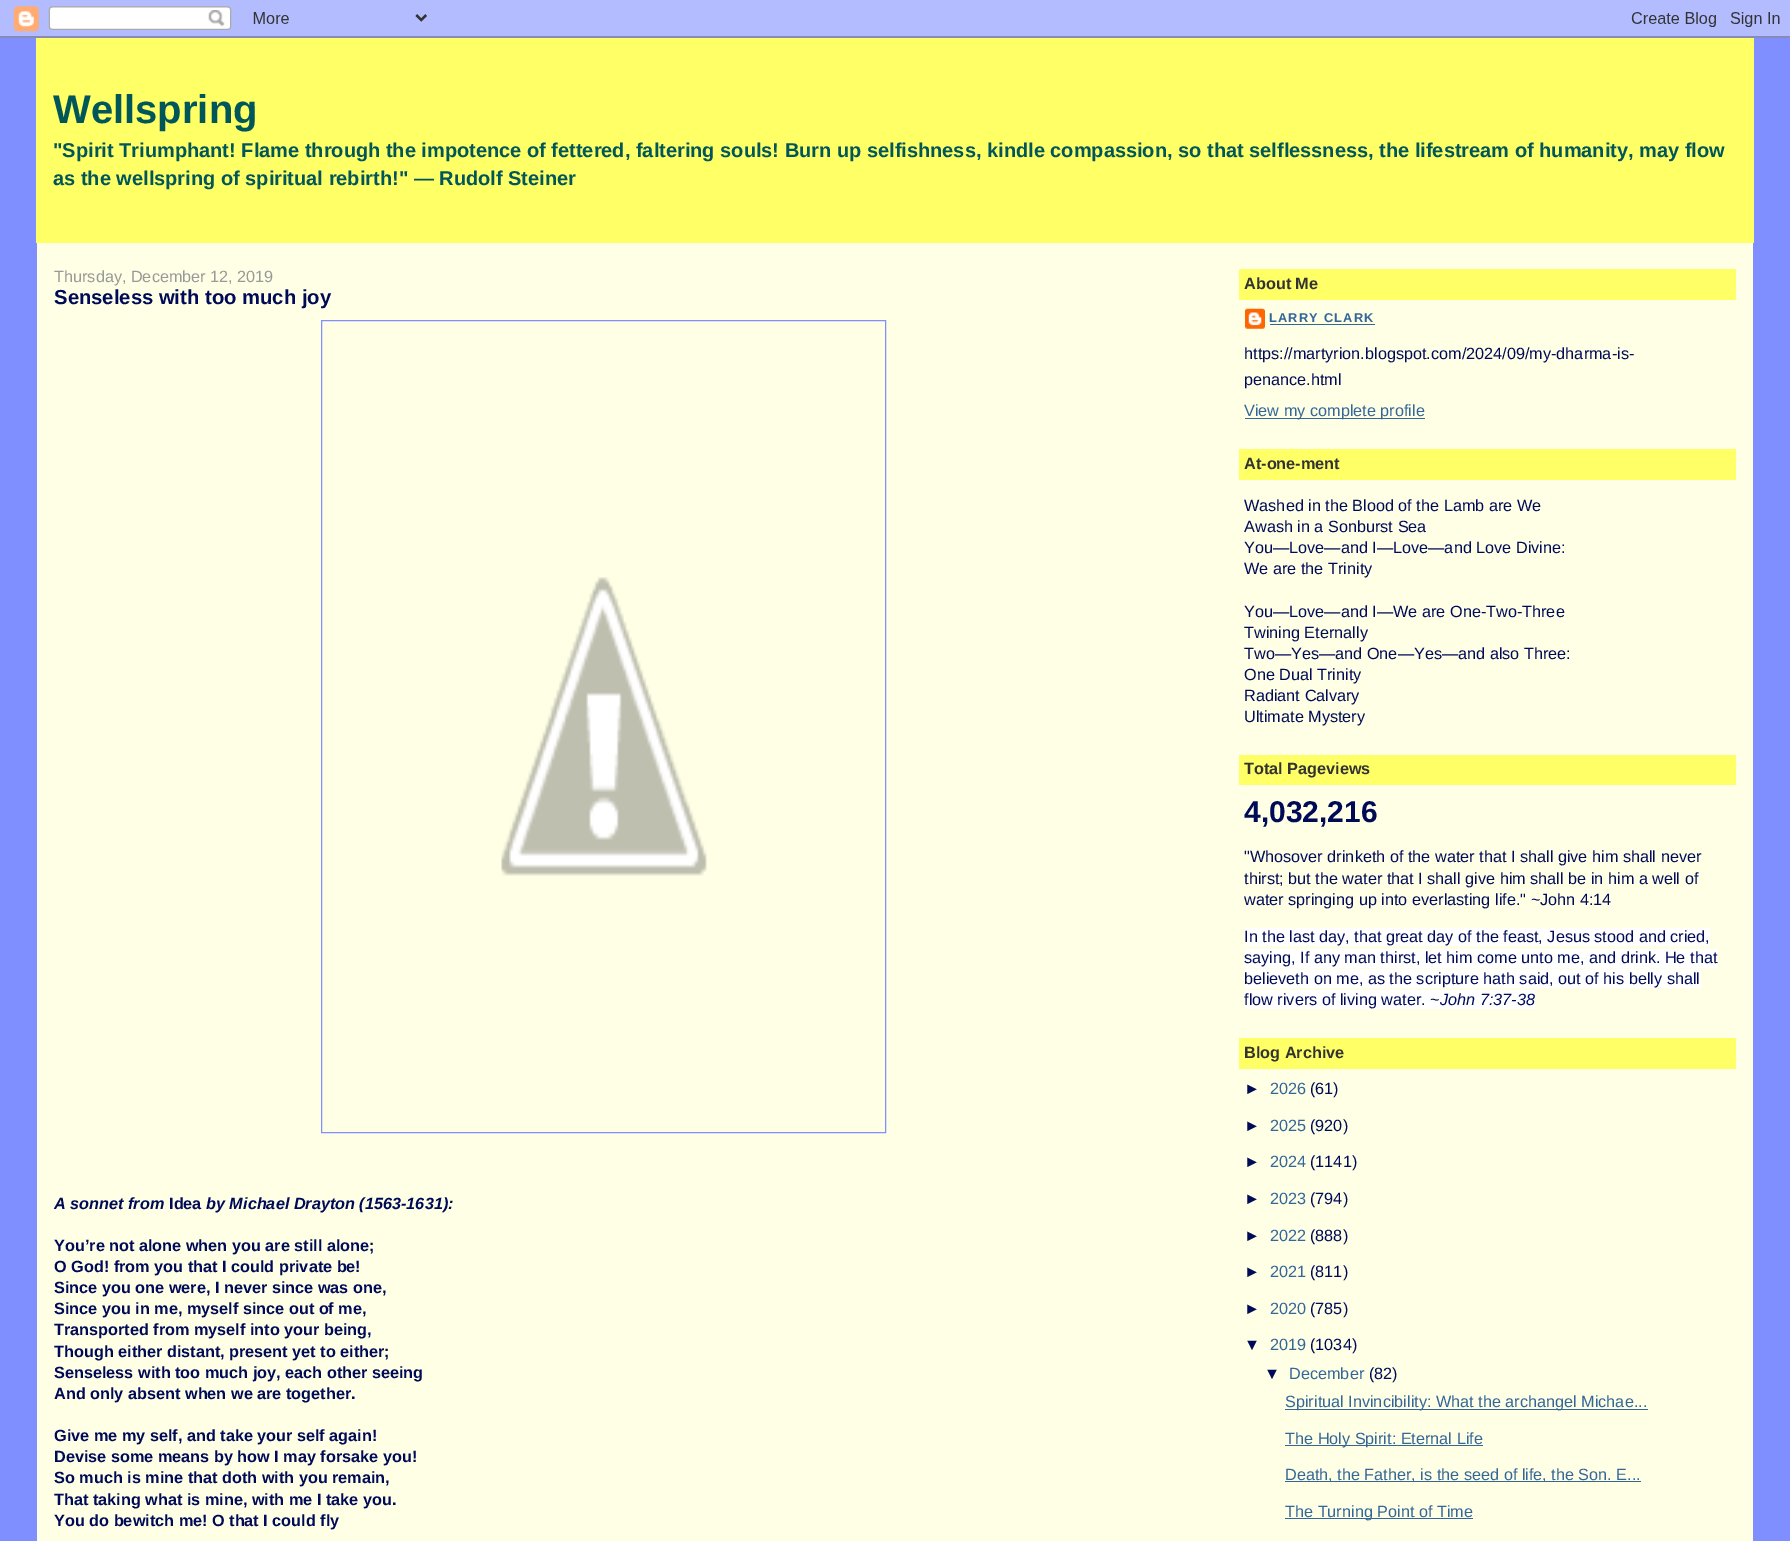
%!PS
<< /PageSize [1790 1541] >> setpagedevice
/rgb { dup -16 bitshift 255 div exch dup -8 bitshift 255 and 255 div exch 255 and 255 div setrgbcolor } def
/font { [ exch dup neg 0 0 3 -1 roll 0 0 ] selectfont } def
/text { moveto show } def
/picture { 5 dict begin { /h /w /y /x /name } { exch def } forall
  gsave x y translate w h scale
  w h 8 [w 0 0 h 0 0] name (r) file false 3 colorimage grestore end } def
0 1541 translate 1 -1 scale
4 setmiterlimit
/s1 { /LiberationSans-Bold 40 font 16#005658 rgb } def
/s2 { /LiberationSans-Bold 20 font 16#005658 rgb } def
/s3 { /LiberationSans-Regular 16.25 font 16#999999 rgb } def
/s4 { /LiberationSans-Bold 20.25 font 16#000B58 rgb } def
/s5 { /LiberationSans-BoldItalic 16.25 font 16#000B58 rgb } def
/s6 { /LiberationSans-Bold 16.25 font 16#000B58 rgb } def
/s7 { /LiberationSans-Bold 16.25 font 16#333333 rgb } def
/s8 { /LiberationSans-Regular 16.25 font 16#000B58 rgb } def
/s9 { /LiberationSans-Regular 16.25 font 16#336699 rgb } def
/s10 { /LiberationSans-Bold 30 font 16#000B58 rgb } def
/s11 { /LiberationSans-Italic 16.25 font 16#000B58 rgb } def
16#808FFF rgb
0 0 1790 1541 rectfill
(pic1.raw) 0 0 1790 38 picture
16#FFFF66 rgb
36 38 1718 205 rectfill
s1
(Wellspring) 53 123 text
s2
("Spirit Triumphant! Flame through the impotence of fettered, faltering souls! Burn up selfishness, kindle compassion, so that selflessness, the lifestream of humanity, may flow) 53 157 text
(as the wellspring of spiritual rebirth!" — Rudolf Steiner) 53 185 text
16#FFFFE6 rgb
37 243 1716 1298 rectfill
s3
(Thursday, December 12, 2019) 54 282 text
s4
(Senseless with too much joy) 54 304 text
16#808FFF rgb
321.5 320.5 564 812 rectstroke
(pic2.raw) 501 577 206 299 picture
s5
(A sonnet from) 54 1209 text
s6
(Idea) 169 1209 text
s5
(by Michael Drayton \(1563-1631\):) 206 1209 text
s6
(You’re not alone when you are still alone;) 54 1251 text
(O God! from you that I could private be!) 54 1272 text
(Since you one were, I never since was one,) 54 1293 text
(Since you in me, myself since out of me,) 54 1314 text
(Transported from myself into your being,) 54 1335 text
(Though either distant, present yet to either;) 54 1357 text
(Senseless with too much joy, each other seeing) 54 1378 text
(And only absent when we are together.) 54 1399 text
(Give me my self, and take your self again!) 54 1441 text
(Devise some means by how I may forsake you!) 54 1462 text
(So much is mine that doth with you remain,) 54 1483 text
(That taking what is mine, with me I take you.) 54 1505 text
(You do bewitch me! O that I could fly) 54 1526 text
16#FFFF66 rgb
1239 269 497 31 rectfill
s7
(About Me) 1244 289 text
(pic3.raw) 1245 308 20 21 picture
/LiberationSans-Bold 12.75 font
16#336699 rgb
1269 322 moveto 1.25 0 (LARRY CLARK) ashow
1270 324 105 1 rectfill
s8
(https://martyrion.blogspot.com/2024/09/my-dharma-is-) 1244 359 text
(penance.html) 1244 385 text
16#336699 rgb
1245 418 180 1 rectfill
(View my complete profile) 1244 416 text
16#FFFF66 rgb
1239 449 497 31 rectfill
s7
(At-one-ment) 1244 469 text
s8
(Washed in the Blood of the Lamb are We) 1244 511 text
(Awash in a Sonburst Sea) 1244 532 text
(You—Love—and I—Love—and Love Divine:) 1244 553 text
(We are the Trinity) 1244 574 text
(You—Love—and I—We are One-Two-Three) 1244 617 text
(Twining Eternally) 1244 638 text
(Two—Yes—and One—Yes—and also Three:) 1244 659 text
(One Dual Trinity) 1244 680 text
(Radiant Calvary) 1244 701 text
(Ultimate Mystery) 1244 722 text
16#FFFF66 rgb
1239 755 497 30 rectfill
s7
(Total Pageviews) 1244 774 text
s10
(4,032,216) 1244 822 text
s8
("Whosover drinketh of the water that I shall give him shall never) 1244 862 text
(thirst; but the water that I shall give him shall be in him a well of) 1244 884 text
(water springing up into everlasting life." ~John 4:14) 1244 905 text
16#FFFFFF rgb
1245 928 465 18 rectfill
s8
(In the last day, that great day of the feast, Jesus stood and cried,) 1244 942 text
16#FFFFFF rgb
1245 949 473 19 rectfill
s8
(saying, If any man thirst, let him come unto me, and drink. He that) 1244 963 text
16#FFFFFF rgb
1245 969 456 19 rectfill
s8
(believeth on me, as the scripture hath said, out of his belly shall) 1244 984 text
16#FFFFFF rgb
1245 990 290 19 rectfill
s8
(flow rivers of living water. ~) 1244 1005 text
s11
(John 7:37-38) 1440 1005 text
16#FFFF66 rgb
1239 1038 497 31 rectfill
s7
(Blog Archive) 1244 1058 text
s8
(►) 1244 1094 text
s9
(2026) 1270 1094 text
s8
(\(61\)) 1310 1094 text
(►) 1244 1131 text
s9
(2025) 1270 1131 text
s8
(\(920\)) 1310 1131 text
(►) 1244 1167 text
s9
(2024) 1270 1167 text
s8
(\(1141\)) 1310 1167 text
(►) 1244 1204 text
s9
(2023) 1270 1204 text
s8
(\(794\)) 1310 1204 text
(►) 1244 1241 text
s9
(2022) 1270 1241 text
s8
(\(888\)) 1310 1241 text
(►) 1244 1277 text
s9
(2021) 1270 1277 text
s8
(\(811\)) 1310 1277 text
(►) 1244 1314 text
s9
(2020) 1270 1314 text
s8
(\(785\)) 1310 1314 text
(▼) 1244 1350 text
s9
(2019) 1270 1350 text
s8
(\(1034\)) 1310 1350 text
(▼) 1264 1379 text
s9
(December) 1289 1379 text
s8
(\(82\)) 1369 1379 text
16#336699 rgb
1285 1409 363 1 rectfill
(Spiritual Invincibility: What the archangel Michae...) 1285 1407 text
1285 1445 198 1 rectfill
(The Holy Spirit: Eternal Life) 1285 1444 text
1285 1481 356 1 rectfill
(Death, the Father, is the seed of life, the Son. E...) 1285 1480 text
1285 1518 188 1 rectfill
(The Turning Point of Time) 1285 1517 text
showpage
